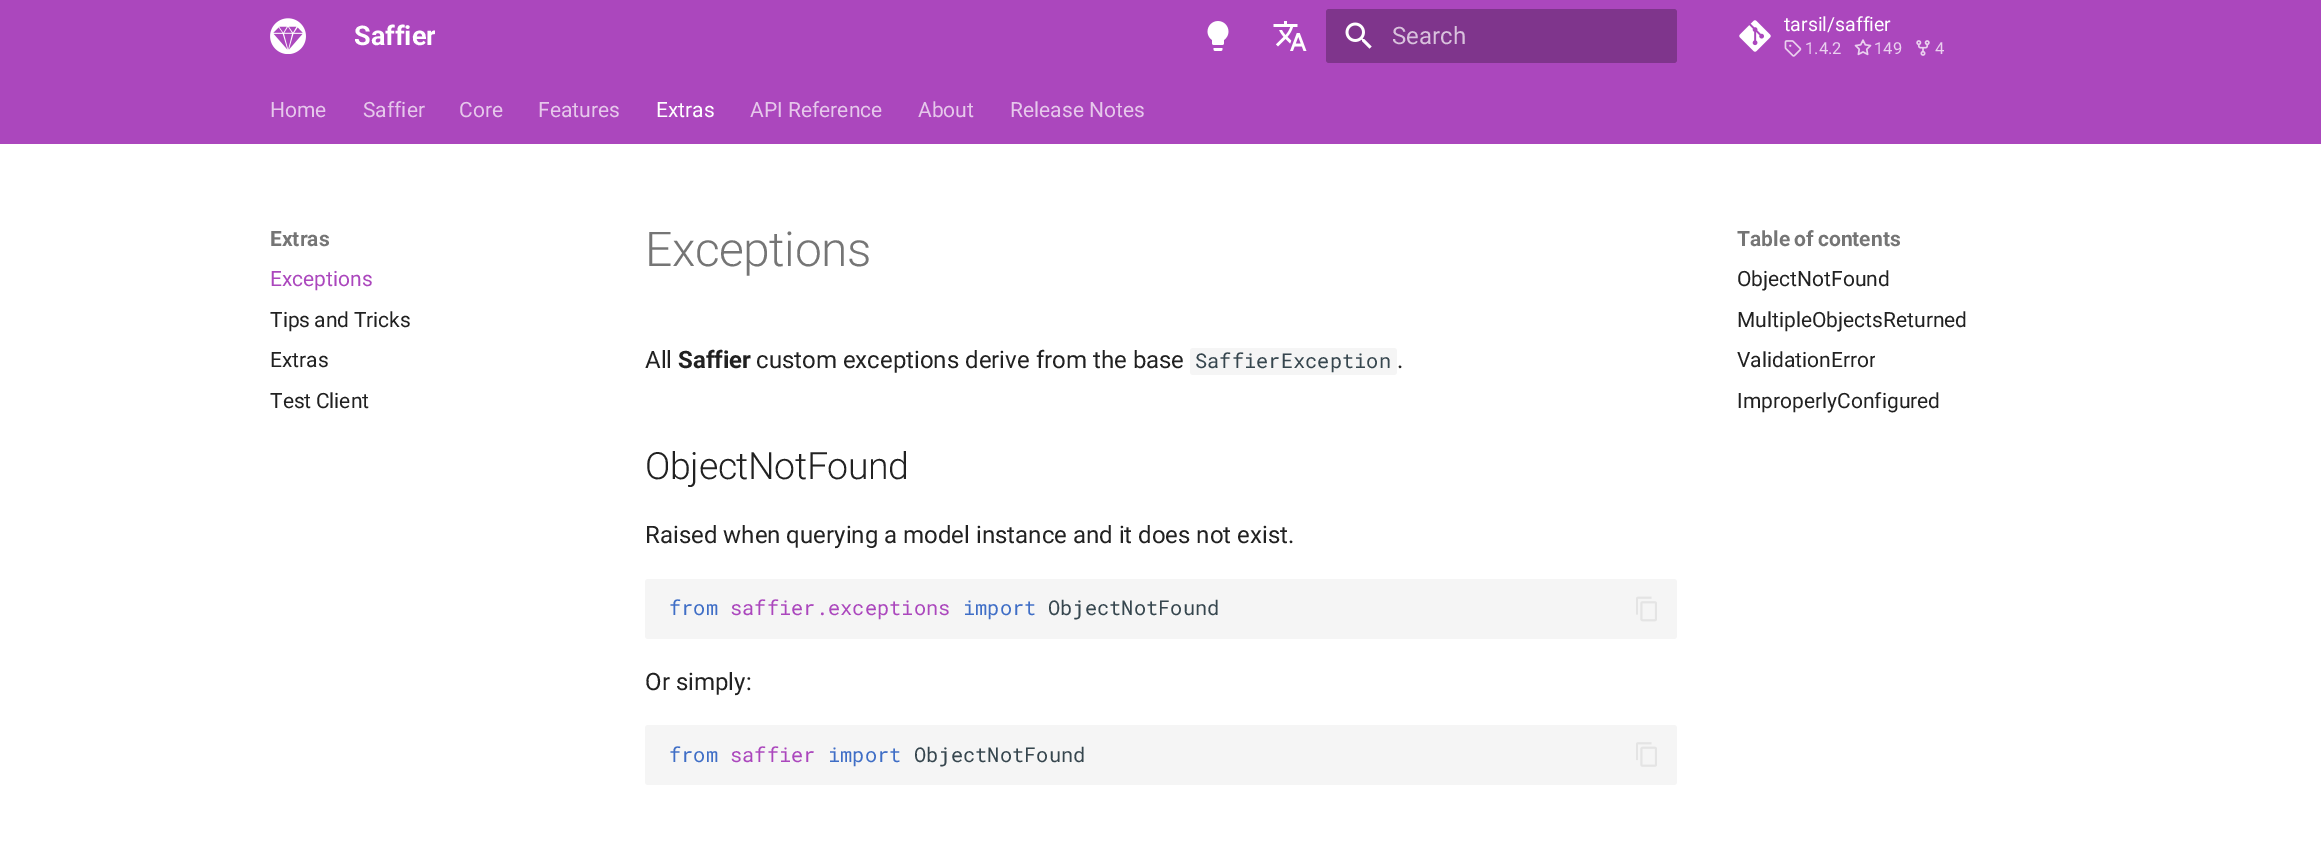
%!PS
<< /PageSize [2321 868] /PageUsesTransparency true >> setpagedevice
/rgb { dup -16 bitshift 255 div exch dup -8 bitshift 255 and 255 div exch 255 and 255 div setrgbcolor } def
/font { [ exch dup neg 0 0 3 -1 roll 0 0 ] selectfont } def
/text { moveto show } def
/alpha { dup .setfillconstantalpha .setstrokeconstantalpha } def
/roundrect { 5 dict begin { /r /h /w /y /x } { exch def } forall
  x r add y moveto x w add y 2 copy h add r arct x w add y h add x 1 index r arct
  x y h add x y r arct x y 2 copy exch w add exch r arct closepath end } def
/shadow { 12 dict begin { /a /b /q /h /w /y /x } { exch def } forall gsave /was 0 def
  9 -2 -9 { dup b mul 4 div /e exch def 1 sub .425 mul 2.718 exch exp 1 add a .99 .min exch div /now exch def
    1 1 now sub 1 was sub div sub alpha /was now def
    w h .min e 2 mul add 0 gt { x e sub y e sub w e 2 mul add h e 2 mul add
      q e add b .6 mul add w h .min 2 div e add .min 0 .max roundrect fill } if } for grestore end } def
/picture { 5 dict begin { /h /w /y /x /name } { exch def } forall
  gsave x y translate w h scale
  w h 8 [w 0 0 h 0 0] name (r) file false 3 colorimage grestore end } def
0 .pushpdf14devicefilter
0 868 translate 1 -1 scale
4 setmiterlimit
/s1 { /Roboto-Bold 27 font 16#FFFFFF rgb } def
/s2 { /Roboto-Regular 24 font 16#D9C2DD rgb } def
/s3 { /Roboto-Regular 19.5 font 16#FFFFFF rgb } def
/s4 { /Roboto-Regular 16.5 font 16#EAD1EF rgb } def
/s5 { /Roboto-Regular 21 font 16#E6C8EB rgb } def
/s6 { /Roboto-Regular 21 font 16#FFFFFF rgb } def
/s7 { /Roboto-Bold 21 font 16#757575 rgb } def
/s8 { /Roboto-Regular 21 font 16#AB47BD rgb } def
/s9 { /Roboto-Regular 21 font 16#212121 rgb } def
/s10 { /Roboto-Regular 24 font 16#212121 rgb } def
/s11 { /Roboto-Bold 24 font 16#212121 rgb } def
/s12 { /RobotoMono-Regular 20.4 font 16#36464E rgb } def
/s13 { /RobotoMono-Regular 20.4 font 16#3F6EC6 rgb } def
/s14 { /RobotoMono-Regular 20.4 font 16#AB47BD rgb } def
16#FFFFFF rgb
0 0 2321 868 rectfill
16#AB47BD rgb
0 0 2321 144 rectfill
(pic1.raw) 270 18 36 36 picture
gsave
354 0 81 72 rectclip
s1
(Saffier) 354 45 text
grestore
(pic2.raw) 1207 21 22 30 picture
(pic3.raw) 1273 21 34 30 picture
16#7F358C rgb
1326 9 351 54 3 roundrect fill
(pic4.raw) 1345 22 27 27 picture
s2
(Search) 1392 44 text
(pic5.raw) 1739 20 32 32 picture
s3
(tarsil/saffier) 1784 31 text
(pic6.raw) 1784 40 18 17 picture
s4
(1.4.2) 1805 54 text
(pic7.raw) 1854 39 18 17 picture
(149) 1874 54 text
(pic8.raw) 1916 40 14 16 picture
(4) 1935 54 text
s5
(Home) 270 117 text
(Saffier) 363 117 text
(Core) 459 117 text
(Features) 538 117 text
s6
(Extras) 656 117 text
s5
(API Reference) 750 117 text
(About) 918 117 text
(Release Notes) 1010 117 text
gsave
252 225 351 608 rectclip
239 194 moveto 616 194 lineto 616 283 lineto 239 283 lineto closepath 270 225 moveto 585 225 lineto 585 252 lineto 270 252 lineto closepath eoclip newpath
16#FFFFFF rgb
258 213 339 51 0 6 1 shadow
grestore
s7
(Extras) 270 246 text
s8
(Exceptions) 270 286 text
16#212121 rgb
270 327 moveto -1 0 32 (Tips and Tricks) widthshow
(Extras) 270 367 text
270 408 moveto -1 0 32 (Test Client) widthshow
/Roboto-Light 48 font
16#757575 rgb
645 266 moveto -0.5 0 (Exceptions) ashow
s10
(All) 645 368 text
s11
(Saffier) 678 368 text
s10
(custom exceptions derive from the base) 756 368 text
16#F5F5F5 rgb
1190 348 207 27 3 roundrect fill
s12
(SaffierException) 1195 368 text
s10
(.) 1397 368 text
/Roboto-Light 37.5 font
645 479 moveto -0.4 0 (ObjectNotFound) ashow
s10
(Raised when querying a model instance and it does not exist.) 645 543 text
16#F5F5F5 rgb
645 579 1032 60 3 roundrect fill
s13
(from) 669 615 text
s14
(saffier.exceptions) 730 615 text
s13
(import) 963 615 text
s12
(ObjectNotFound) 1048 615 text
(pic9.raw) 1636 596 21 26 picture
s10
(Or simply:) 645 690 text
16#F5F5F5 rgb
645 725 1032 60 3 roundrect fill
s13
(from) 669 762 text
s14
(saffier) 730 762 text
s13
(import) 828 762 text
s12
(ObjectNotFound) 914 762 text
(pic10.raw) 1636 742 21 25 picture
gsave
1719 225 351 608 rectclip
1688 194 moveto 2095 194 lineto 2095 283 lineto 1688 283 lineto closepath 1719 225 moveto 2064 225 lineto 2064 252 lineto 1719 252 lineto closepath eoclip newpath
16#FFFFFF rgb
1707 213 369 51 0 6 1 shadow
grestore
/Roboto-Bold 21 font
16#757575 rgb
1737 246 moveto -1 0 32 (Table of contents) widthshow
s9
(ObjectNotFound) 1737 286 text
(MultipleObjectsReturned) 1737 327 text
gsave
1737 347 138 27 rectclip
(ValidationError) 1737 367 text
grestore
(ImproperlyConfigured) 1737 408 text
.poppdf14devicefilter showpage
